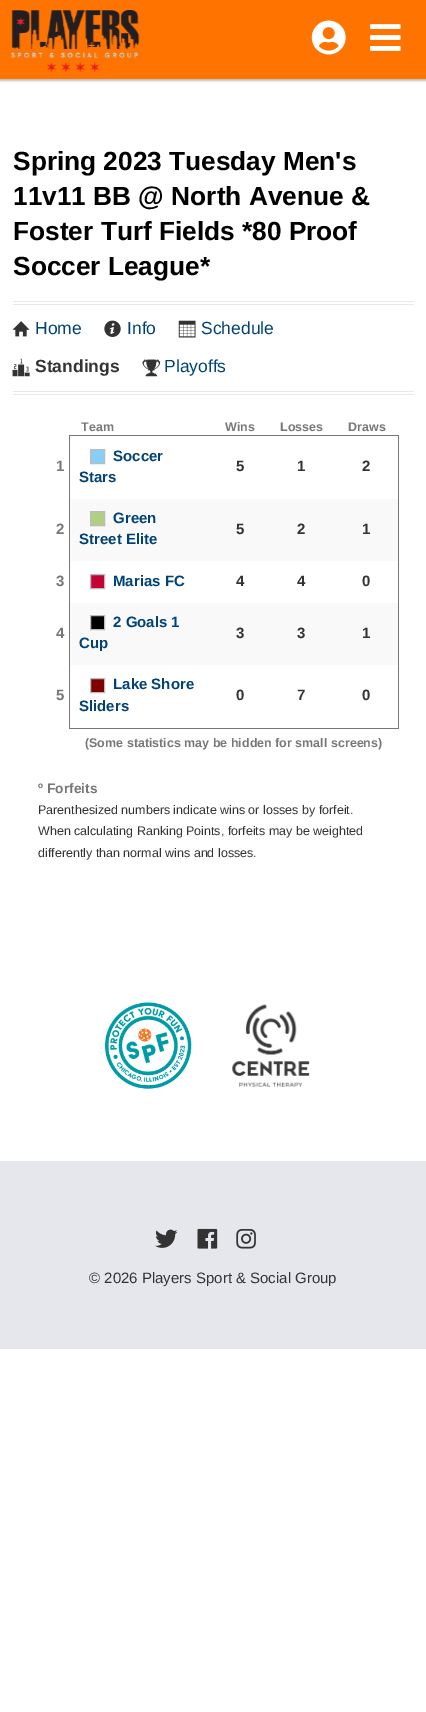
%!PS
<< /PageSize [426 1712] /PageUsesTransparency true >> setpagedevice
/rgb { dup -16 bitshift 255 div exch dup -8 bitshift 255 and 255 div exch 255 and 255 div setrgbcolor } def
/font { [ exch dup neg 0 0 3 -1 roll 0 0 ] selectfont } def
/text { moveto show } def
/alpha { dup .setfillconstantalpha .setstrokeconstantalpha } def
/roundrect { 5 dict begin { /r /h /w /y /x } { exch def } forall
  x r add y moveto x w add y 2 copy h add r arct x w add y h add x 1 index r arct
  x y h add x y r arct x y 2 copy exch w add exch r arct closepath end } def
/shadow { 12 dict begin { /a /b /q /h /w /y /x } { exch def } forall gsave /was 0 def
  9 -2 -9 { dup b mul 4 div /e exch def 1 sub .425 mul 2.718 exch exp 1 add a .99 .min exch div /now exch def
    1 1 now sub 1 was sub div sub alpha /was now def
    w h .min e 2 mul add 0 gt { x e sub y e sub w e 2 mul add h e 2 mul add
      q e add b .6 mul add w h .min 2 div e add .min 0 .max roundrect fill } if } for grestore end } def
/picture { 5 dict begin { /h /w /y /x /name } { exch def } forall
  gsave x y translate w h scale
  w h 8 [w 0 0 h 0 0] name (r) file false 3 colorimage grestore end } def
0 .pushpdf14devicefilter
0 1712 translate 1 -1 scale
4 setmiterlimit
/s1 { /LiberationSans-Bold 26.25 font 16#000000 rgb } def
/s2 { /LiberationSans-Regular 17.5 font 16#004276 rgb } def
/s3 { /LiberationSans-Bold 17.5 font 16#333333 rgb } def
/s4 { /LiberationSans-Bold 12.5 font 16#777777 rgb } def
/s5 { /LiberationSans-Bold 15 font 16#777777 rgb } def
/s6 { /LiberationSans-Bold 15 font 16#004276 rgb } def
/s7 { /LiberationSans-Bold 15 font 16#333333 rgb } def
/s8 { /LiberationSans-Bold 13.75 font 16#777777 rgb } def
/s9 { /LiberationSans-Regular 12.5 font 16#333333 rgb } def
/s10 { /LiberationSans-Regular 15 font 16#333333 rgb } def
16#FFFFFF rgb
0 0 426 1712 rectfill
16#000000 rgb
-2 -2 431 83 0 1 0.25 shadow
16#FF7300 rgb
0 0 426 79 rectfill
(pic1.raw) 11 10 129 63 picture
(pic2.raw) 311 20 35 35 picture
(pic3.raw) 370 24 31 27 picture
s1
(Spring 2023 Tuesday Men's) 13 170 text
(11v11 BB @ North Avenue &) 13 205 text
(Foster Turf Fields *80 Proof) 13 240 text
(Soccer League*) 13 275 text
16#E8E8E8 rgb
13 301 401 1 rectfill
13 304 401 1 rectfill
13 391 401 1 rectfill
13 394 401 1 rectfill
(pic4.raw) 12 321 18 16 picture
s2
(Home) 35 334 text
(pic5.raw) 104 320 17 17 picture
(Info) 127 334 text
(pic6.raw) 178 320 18 18 picture
(Schedule) 201 334 text
(pic7.raw) 12 358 18 19 picture
s3
(Standings) 35 372 text
(pic8.raw) 142 359 19 18 picture
s2
(Playoffs) 164 372 text
s4
(Team) 81 431 text
(Wins) 225 431 text
(Losses) 280 431 text
(Draws) 348 431 text
69 435 330 1 rectfill
398 498 1 231 rectfill
69 728 330 1 rectfill
69 498 1 231 rectfill
69 435 1 64 rectfill
s5
(1) 56 471 text
16#87CEFA rgb
90.5 449.5 moveto 104.5 449.5 lineto 104.5 463.5 lineto 90.5 463.5 lineto closepath gsave fill grestore
16#BBBBBB rgb
stroke
s6
(Soccer) 113 461 text
(Stars) 79 482 text
s7
(5) 236 471 text
(1) 297 471 text
16#777777 rgb
398 435 1 64 rectfill
s7
(2) 362 471 text
s5
(2) 56 534 text
16#F9F9F9 rgb
70 499 328 62 rectfill
16#B0CF81 rgb
90.5 511.5 moveto 104.5 511.5 lineto 104.5 525.5 lineto 90.5 525.5 lineto closepath gsave fill grestore
16#BBBBBB rgb
stroke
s6
(Green) 113 523 text
(Street Elite) 79 544 text
s7
(5) 236 534 text
(2) 297 534 text
(1) 362 534 text
s5
(3) 56 586 text
16#C40233 rgb
90.5 574.5 moveto 104.5 574.5 lineto 104.5 588.5 lineto 90.5 588.5 lineto closepath gsave fill grestore
16#BBBBBB rgb
stroke
s6
(Marias FC) 113 586 text
s7
(4) 236 586 text
(4) 297 586 text
(0) 362 586 text
s5
(4) 56 638 text
16#F9F9F9 rgb
70 603 328 62 rectfill
16#000000 rgb
90.5 615.5 moveto 104.5 615.5 lineto 104.5 629.5 lineto 90.5 629.5 lineto closepath gsave fill grestore
16#BBBBBB rgb
stroke
s6
(2 Goals 1) 113 627 text
(Cup) 79 648 text
s7
(3) 236 638 text
(3) 297 638 text
(1) 362 638 text
s5
(5) 56 700 text
16#800000 rgb
90.5 678.5 moveto 104.5 678.5 lineto 104.5 692.5 lineto 90.5 692.5 lineto closepath gsave fill grestore
16#BBBBBB rgb
stroke
s6
(Lake Shore) 113 689 text
(Sliders) 79 711 text
s7
(0) 236 700 text
(7) 297 700 text
(0) 362 700 text
s4
(\(Some statistics may be hidden for small screens\)) 85 747 text
s8
(º Forfeits) 38 793 text
s9
(Parenthesized numbers indicate wins or losses by forfeit.) 38 814 text
(When calculating Ranking Points, forfeits may be weighted) 38 835 text
(differently than normal wins and losses.) 38 857 text
(pic9.raw) 105 1002 87 87 picture
(pic10.raw) 232 1004 78 83 picture
16#E5E7EC rgb
0 1161 426 188 rectfill
(pic11.raw) 155 1229 23 19 picture
(pic12.raw) 197 1228 21 21 picture
(pic13.raw) 236 1229 20 20 picture
s10
(© 2026 Players Sport & Social Group) 89 1283 text
.poppdf14devicefilter showpage
